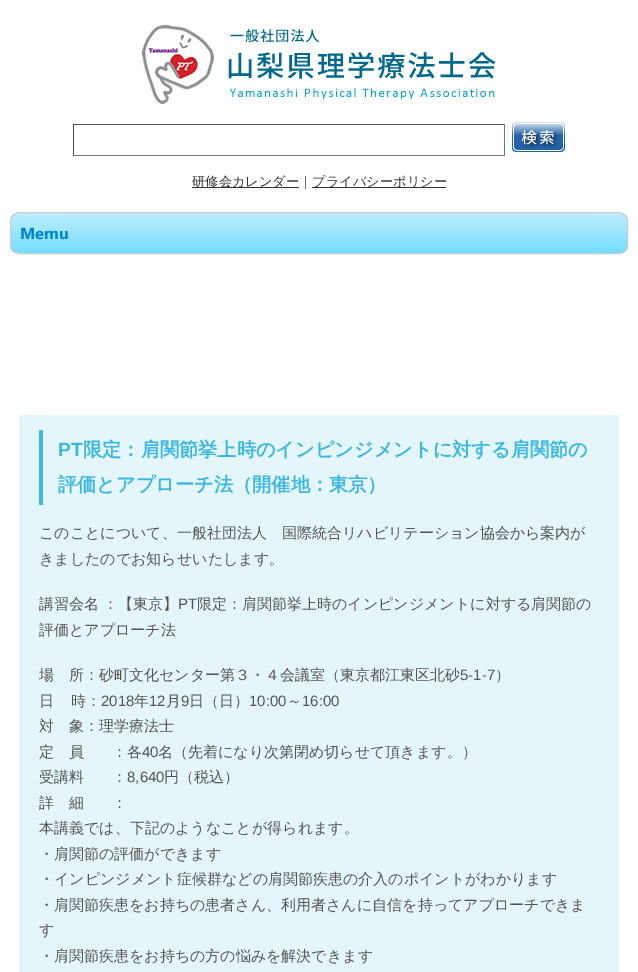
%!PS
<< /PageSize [638 972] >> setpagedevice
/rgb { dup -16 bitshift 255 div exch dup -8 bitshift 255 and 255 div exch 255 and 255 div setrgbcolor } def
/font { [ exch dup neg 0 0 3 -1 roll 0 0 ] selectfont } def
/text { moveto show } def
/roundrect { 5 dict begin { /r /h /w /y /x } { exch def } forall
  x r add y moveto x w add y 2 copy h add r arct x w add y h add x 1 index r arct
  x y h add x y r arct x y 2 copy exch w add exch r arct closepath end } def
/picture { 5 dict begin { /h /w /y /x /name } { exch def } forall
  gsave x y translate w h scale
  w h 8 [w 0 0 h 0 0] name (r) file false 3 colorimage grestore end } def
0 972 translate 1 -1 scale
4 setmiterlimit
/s1 { /WenQuanYiZenHei-Medium 13.25 font 16#333333 rgb } def
/s2 { /LiberationSans-Bold 19.2 font 16#3BB8E1 rgb } def
/s3 { /WenQuanYiZenHei-Bold 19.2 font 16#3BB8E1 rgb } def
/s4 { /WenQuanYiZenHei-Medium 15 font 16#545454 rgb } def
/s5 { /LiberationSans-Regular 15 font 16#545454 rgb } def
16#FFFFFF rgb
0 0 638 972 rectfill
(pic1.raw) 142 25 354 79 picture
16#4F4F4F rgb
73 124 432 1 rectfill
16#767676 rgb
504 124 1 32 rectfill
73 155 432 1 rectfill
16#4F4F4F rgb
73 124 1 32 rectfill
(pic2.raw) 512 122 53 30 picture
16#333333 rgb
192 187 107 1 rectfill
s1
(研修会カレンダー｜) 192 186 text
312 187 134 1 rectfill
(プライバシーポリシー) 312 186 text
gsave
10 212 618 42 10 roundrect clip newpath
gsave 10 213 moveto 628 213 lineto 628 253 lineto 10 253 lineto closepath clip newpath
<< /ShadingType 2 /ColorSpace /DeviceRGB /Coords [11 213 11 253] /Extend [true true] /Function << /FunctionType 2 /Domain [0 1] /C0 [0.749 0.937 1] /C1 [0.451 0.863 1] /N 1 >> >> shfill grestore
grestore
16#CCCCCC rgb
10.5 212.5 617 41 9.5 roundrect stroke
(pic3.raw) 21 227 47 13 picture
16#E5F6FB rgb
19 415 600 557 rectfill
16#3CB9E2 rgb
39 430 4 75 rectfill
s2
(PT) 58 456 text
s3
(限定：肩関節挙上時のインピンジメントに対する肩関節の) 83 456 text
(評価とアプローチ法（開催地：東京）) 58 491 text
s4
(このことについて、一般社団法人　国際統合リハビリテーション協会から案内が) 39 538 text
(きましたのでお知らせいたします。) 39 564 text
(講習会名) 39 609 text
(：【東京】) 103 609 text
s5
(PT) 178 609 text
s4
(限定：肩関節挙上時のインピンジメントに対する肩関節の) 197 609 text
(評価とアプローチ法) 39 635 text
(場　所：砂町文化センター第３・４会議室（東京都江東区北砂) 39 680 text
s5
(5-1-7) 460 680 text
s4
(）) 495 680 text
(日) 39 706 text
(時：) 71 706 text
s5
(2018) 101 706 text
s4
(年) 134 706 text
s5
(12) 149 706 text
s4
(月) 166 706 text
s5
(9) 181 706 text
s4
(日（日）) 189 706 text
s5
(10:00) 249 706 text
s4
(～) 287 706 text
s5
(16:00) 302 706 text
s4
(対　象：理学療法士) 39 731 text
(定　員) 39 757 text
(：各) 112 757 text
s5
(40) 142 757 text
s4
(名（先着になり次第閉め切らせて頂きます。）) 158 757 text
(受講料) 39 782 text
(：) 112 782 text
s5
(8,640) 127 782 text
s4
(円（税込）) 164 782 text
(詳　細) 39 808 text
(：) 112 808 text
(本講義では、下記のようなことが得られます。) 39 833 text
(・肩関節の評価ができます) 39 859 text
(・インピンジメント症候群などの肩関節疾患の介入のポイントがわかります) 39 884 text
(・肩関節疾患をお持ちの患者さん、利用者さんに自信を持ってアプローチできま) 39 910 text
(す) 39 935 text
(・肩関節疾患をお持ちの方の悩みを解決できます) 39 961 text
showpage
